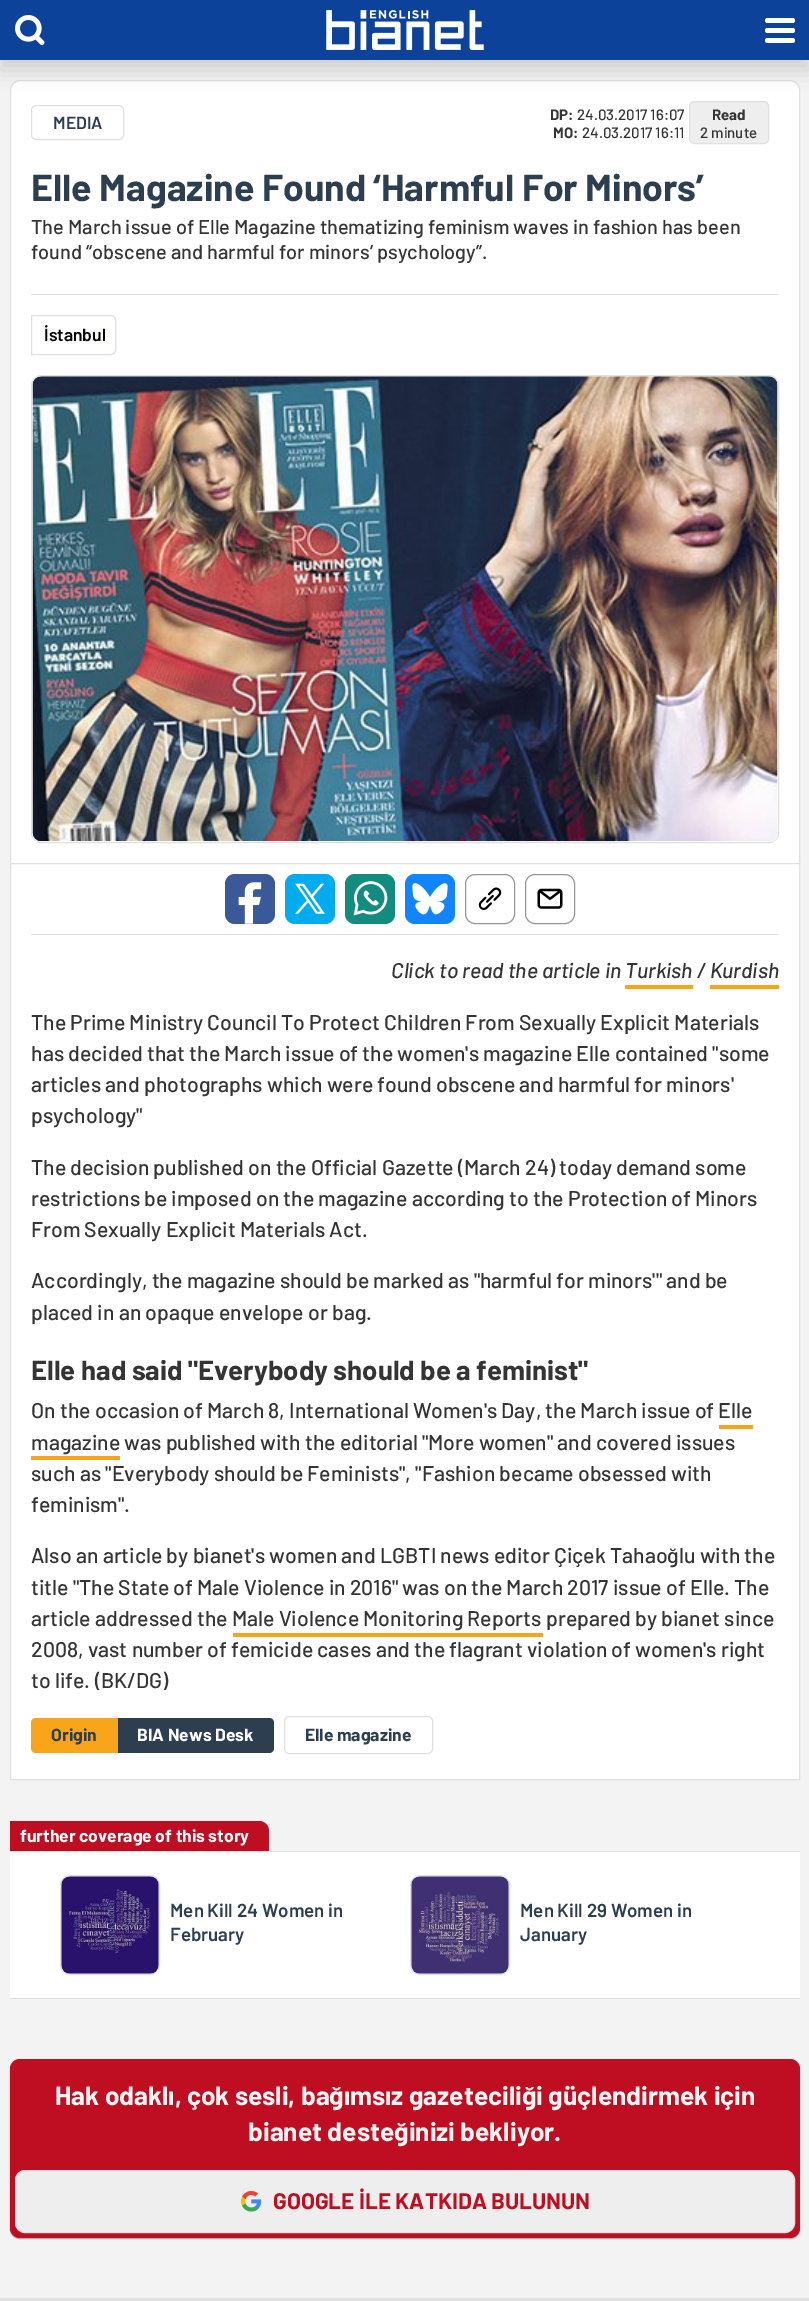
%!PS
<< /PageSize [809 2301] /PageUsesTransparency true >> setpagedevice
/rgb { dup -16 bitshift 255 div exch dup -8 bitshift 255 and 255 div exch 255 and 255 div setrgbcolor } def
/font { [ exch dup neg 0 0 3 -1 roll 0 0 ] selectfont } def
/text { moveto show } def
/alpha { dup .setfillconstantalpha .setstrokeconstantalpha } def
/roundrect { 5 dict begin { /r /h /w /y /x } { exch def } forall
  x r add y moveto x w add y 2 copy h add r arct x w add y h add x 1 index r arct
  x y h add x y r arct x y 2 copy exch w add exch r arct closepath end } def
/shadow { 12 dict begin { /a /b /q /h /w /y /x } { exch def } forall gsave /was 0 def
  9 -2 -9 { dup b mul 4 div /e exch def 1 sub .425 mul 2.718 exch exp 1 add a .99 .min exch div /now exch def
    1 1 now sub 1 was sub div sub alpha /was now def
    w h .min e 2 mul add 0 gt { x e sub y e sub w e 2 mul add h e 2 mul add
      q e add b .6 mul add w h .min 2 div e add .min 0 .max roundrect fill } if } for grestore end } def
/picture { 5 dict begin { /h /w /y /x /name } { exch def } forall
  gsave x y translate w h scale
  w h 8 [w 0 0 h 0 0] name (r) file false 3 colorimage grestore end } def
0 .pushpdf14devicefilter
0 2301 translate 1 -1 scale
4 setmiterlimit
/s1 { /Barlow-SemiBold 17.5 font 16#2C3E50 rgb } def
/s2 { /Barlow-Bold 15 font 16#343434 rgb } def
/s3 { /Barlow-Medium 15 font 16#343434 rgb } def
/s4 { /Barlow-Bold 37.5 font 16#2C3E50 rgb } def
/s5 { /Barlow-Medium 20 font 16#343434 rgb } def
/s6 { /Barlow-SemiBold 17.5 font 16#070401 rgb } def
/s7 { /Barlow-MediumItalic 21.25 font 16#343434 rgb } def
/s8 { /Barlow-Medium 21.25 font 16#343434 rgb } def
/s9 { /Barlow-Bold 27.5 font 16#343434 rgb } def
/s10 { /Barlow-Bold 17.5 font 16#2C3E50 rgb } def
/s11 { /Barlow-Bold 17.5 font 16#FEFEFE rgb } def
/s12 { /Barlow-SemiBold 18.75 font 16#2C3E50 rgb } def
/s13 { /Barlow-Bold 26.25 font 16#F7F5F3 rgb } def
/s14 { /Barlow-Bold 22.5 font 16#BF0D21 rgb } def
16#F3F3F3 rgb
0 0 809 2301 rectfill
16#FFFFFF rgb
20 80.5 moveto 790 80.5 lineto 795 80.5 799.5 85 799.5 90 curveto 799.5 863.5 lineto 10.5 863.5 lineto 10.5 90 lineto 10.5 85 15 80.5 20 80.5 curveto closepath gsave fill grestore
16#E0E0E0 rgb
stroke
16#000000 rgb
0 10 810 60 0 10 0.15 shadow
16#0D429B rgb
0 0 809 60 rectfill
(pic1.raw) 15 15 30 30 picture
(pic2.raw) 326 10 158 40 picture
16#FFFFFF rgb
765 18 30 5 2.5 roundrect fill
765 28 30 5 2.5 roundrect fill
765 38 30 5 2.5 roundrect fill
16#E0E0E0 rgb
31.5 105.5 92 34 4.5 roundrect stroke
s1
(MEDIA) 53 129 text
s2
(DP:) 550 120 text
s3
(24.03.2017 16:07) 577 120 text
s2
(MO:) 553 138 text
s3
(24.03.2017 16:11) 582 138 text
16#EEEEEE rgb
689.5 101.5 79 42 4.5 roundrect gsave fill grestore
16#E0E0E0 rgb
stroke
s2
(Read) 712 120 text
s3
(2 minute) 700 138 text
s4
(Elle Magazine Found ‘Harmful For Minors’) 31 201 text
s5
(The March issue of Elle Magazine thematizing feminism waves in fashion has been) 31 234 text
(found “obscene and harmful for minors’ psychology”.) 31 259 text
16#E0E0E0 rgb
31 294 748 1 rectfill
31.5 315.5 moveto 111 315.5 lineto 113.5 315.5 115.5 317.5 115.5 320 curveto 115.5 350 lineto 115.5 352.5 113.5 354.5 111 354.5 curveto 31.5 354.5 lineto closepath stroke
s6
(İstanbul) 44 341 text
16#E0E0E0 rgb
31.5 375.5 747 467 9.5 roundrect stroke
(pic3.raw) 32 376 746 466 picture
16#FFFFFF rgb
10.5 863.5 moveto 799.5 863.5 lineto 799.5 1779.5 lineto 10.5 1779.5 lineto closepath gsave fill grestore
16#E0E0E0 rgb
stroke
31 934 748 1 rectfill
16#3B5998 rgb
225 874 50 50 10 roundrect fill
(pic4.raw) 238 882 24 42 picture
16#00ACEE rgb
285 874 50 50 10 roundrect fill
(pic5.raw) 295 883 30 31 picture
16#128C7E rgb
345 874 50 50 10 roundrect fill
(pic6.raw) 353 881 35 35 picture
16#1185FE rgb
405 874 50 50 10 roundrect fill
(pic7.raw) 412 883 36 32 picture
16#979797 rgb
465.5 874.5 49 49 9.5 roundrect stroke
(pic8.raw) 478 887 24 23 picture
525.5 874.5 49 49 9.5 roundrect stroke
(pic9.raw) 537 888 26 21 picture
s7
(Click to read the article in Turkish / Kurdish) 391 978 text
16#F9A51A rgb
625 985 68 4 rectfill
710 985 69 4 rectfill
s8
(The Prime Ministry Council To Protect Children From Sexually Explicit Materials) 31 1030 text
(has decided that the March issue of the women's magazine Elle contained "some) 31 1061 text
(articles and photographs which were found obscene and harmful for minors') 31 1092 text
(psychology") 31 1123 text
(The decision published on the Official Gazette \(March 24\) today demand some) 31 1175 text
(restrictions be imposed on the magazine according to the Protection of Minors) 31 1206 text
(From Sexually Explicit Materials Act.) 31 1237 text
(Accordingly, the magazine should be marked as "harmful for minors'" and be) 31 1288 text
(placed in an opaque envelope or bag.) 31 1320 text
s9
(Elle had said "Everybody should be a feminist") 31 1380 text
s8
(On the occasion of March 8, International Women's Day, the March issue of Elle) 31 1418 text
(magazine was published with the editorial "More women" and covered issues) 31 1450 text
16#F9A51A rgb
719 1425 34 4 rectfill
31 1456 89 4 rectfill
s8
(such as "Everybody should be Feminists", "Fashion became obsessed with) 31 1481 text
(feminism".) 31 1512 text
(Also an article by bianet's women and LGBTI news editor Çiçek Tahaoğlu with the) 31 1563 text
(title "The State of Male Violence in 2016" was on the March 2017 issue of Elle. The) 31 1595 text
(article addressed the Male Violence Monitoring Reports prepared by bianet since) 31 1626 text
16#F9A51A rgb
233 1633 310 4 rectfill
s8
(2008, vast number of femicide cases and the flagrant violation of women's right) 31 1657 text
(to life. \(BK/DG\)) 31 1688 text
16#F9A51A rgb
36 1718 moveto 118 1718 lineto 118 1753 lineto 36 1753 lineto 33 1753 31 1751 31 1748 curveto 31 1723 lineto 31 1720 33 1718 36 1718 curveto closepath fill
s10
(Origin) 51 1741 text
118 1718 moveto 269 1718 lineto 272 1718 274 1720 274 1723 curveto 274 1748 lineto 274 1751 272 1753 269 1753 curveto 118 1753 lineto closepath fill
s11
(BIA News Desk) 137 1741 text
16#E0E0E0 rgb
284.5 1716.5 148 37 4.5 roundrect stroke
s10
(Elle magazine) 305 1741 text
16#BF0D21 rgb
10 1821 moveto 259 1821 lineto 264.5 1821 269 1825.5 269 1831 curveto 269 1851 lineto 10 1851 lineto closepath fill
s11
(further coverage of this story) 20 1842 text
16#FFFFFF rgb
10 1852 790 146 rectfill
16#E0E0E0 rgb
10 1851 790 1 rectfill
10 1998 790 1 rectfill
60.5 1875.5 99 99 9.5 roundrect stroke
(pic10.raw) 61 1876 98 98 picture
s12
(Men Kill 24 Women in) 170 1917 text
(February) 170 1941 text
16#E0E0E0 rgb
410.5 1875.5 99 99 9.5 roundrect stroke
(pic11.raw) 411 1876 98 98 picture
s12
(Men Kill 29 Women in) 520 1917 text
(January) 520 1941 text
16#000000 rgb
10 2060 790 179 10 0.5 0.3 shadow
16#BF0D21 rgb
10 2059 790 179 10 roundrect fill
s13
(Hak odaklı, çok sesli, bağımsız gazeteciliği güçlendirmek için) 55 2105 text
(bianet desteğinizi bekliyor.) 248 2141 text
16#EEEEEE rgb
15.5 2170.5 779 62 9.5 roundrect gsave fill grestore
16#E0E0E0 rgb
stroke
(pic12.raw) 240 2190 22 22 picture
s14
(GOOGLE İLE KATKIDA BULUNUN) 273 2209 text
16#E0E0E0 rgb
0 2298 809 3 rectfill
.poppdf14devicefilter showpage
